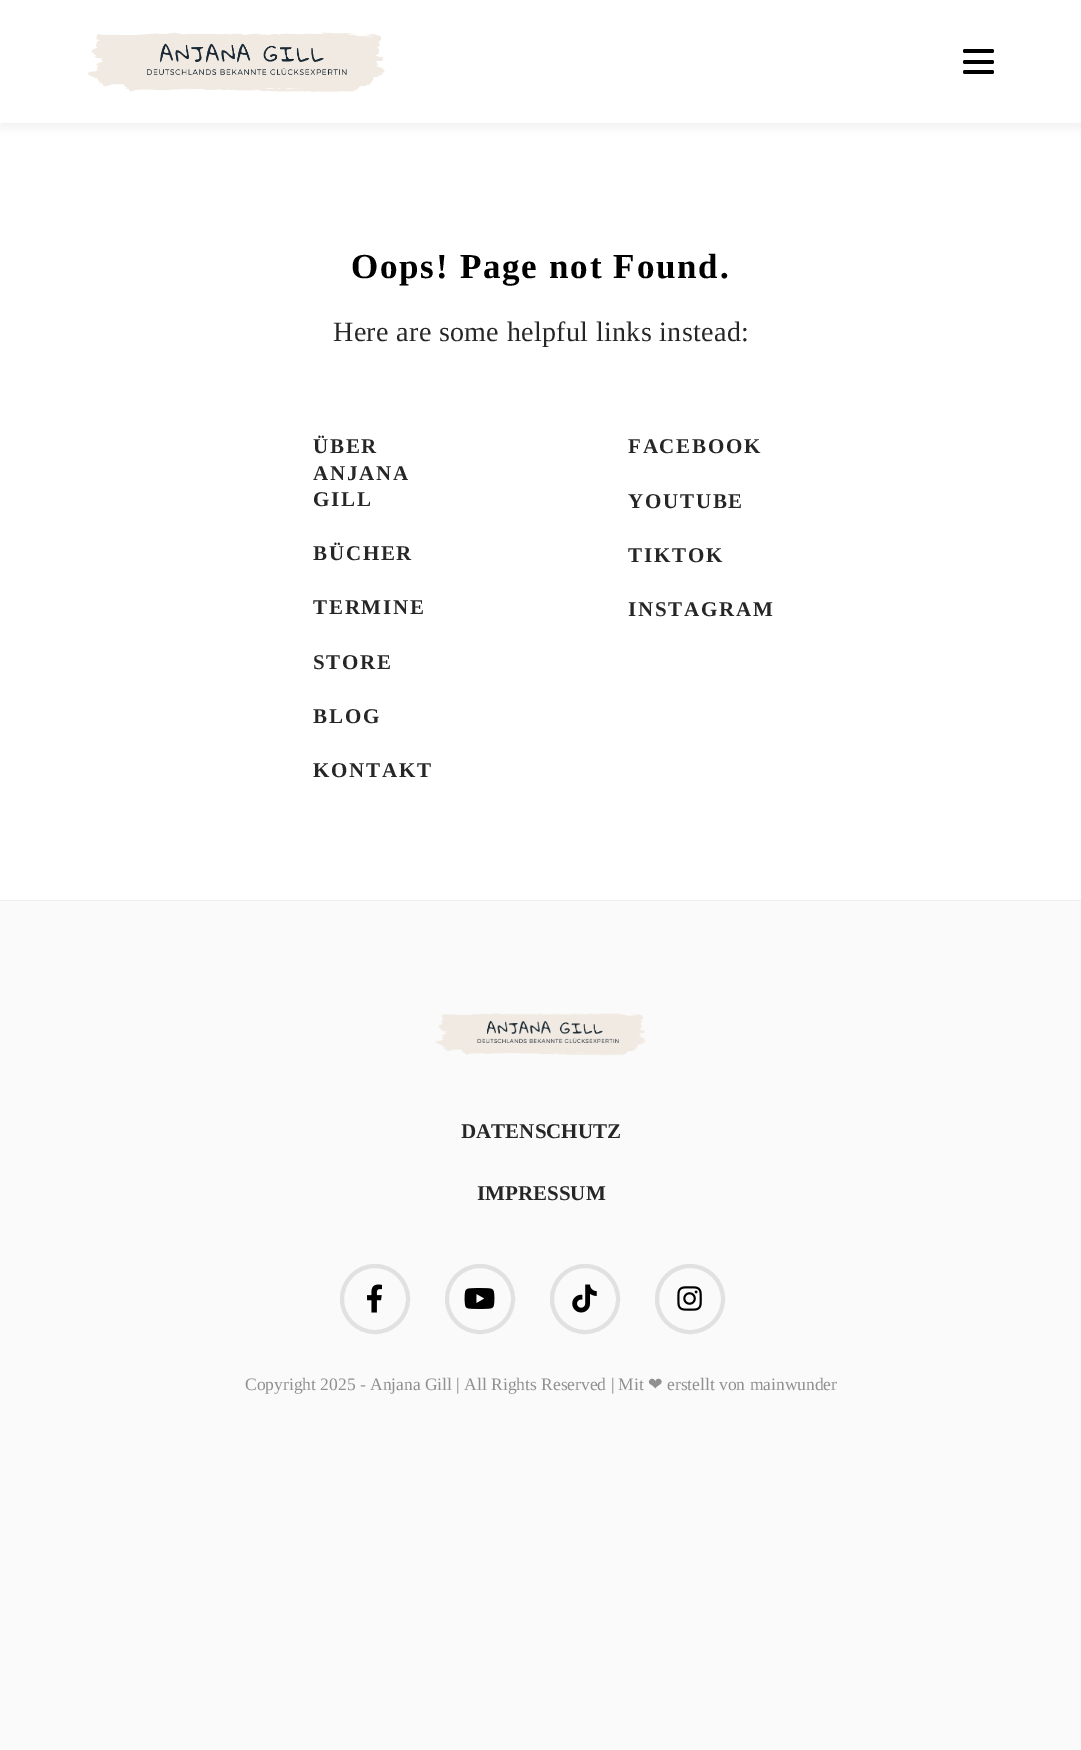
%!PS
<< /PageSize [1081 1750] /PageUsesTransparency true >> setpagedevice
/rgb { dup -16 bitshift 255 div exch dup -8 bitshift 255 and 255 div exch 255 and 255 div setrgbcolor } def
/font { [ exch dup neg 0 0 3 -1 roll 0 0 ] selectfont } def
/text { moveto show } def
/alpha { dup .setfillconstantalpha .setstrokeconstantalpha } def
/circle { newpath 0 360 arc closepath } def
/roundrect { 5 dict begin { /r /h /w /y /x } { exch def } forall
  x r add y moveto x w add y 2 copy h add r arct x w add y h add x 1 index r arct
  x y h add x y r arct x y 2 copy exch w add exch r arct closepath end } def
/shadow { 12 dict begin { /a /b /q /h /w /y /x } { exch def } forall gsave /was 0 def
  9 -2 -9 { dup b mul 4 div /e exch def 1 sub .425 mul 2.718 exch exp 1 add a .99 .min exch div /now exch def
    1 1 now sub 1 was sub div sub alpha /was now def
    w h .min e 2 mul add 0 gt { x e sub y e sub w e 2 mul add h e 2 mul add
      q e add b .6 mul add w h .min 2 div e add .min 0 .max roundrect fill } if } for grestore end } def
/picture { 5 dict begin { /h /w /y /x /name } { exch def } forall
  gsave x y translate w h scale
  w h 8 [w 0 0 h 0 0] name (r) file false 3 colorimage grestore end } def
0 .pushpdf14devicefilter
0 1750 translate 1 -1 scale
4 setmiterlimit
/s1 { /LiberationSerif-Bold 21 font 16#262626 rgb } def
/s2 { /LiberationSerif-Regular 17.5 font 16#909090 rgb } def
/s3 { /DejaVuSans-Regular 17.5 font 16#909090 rgb } def
16#FAFAFA rgb
0 0 1081 1750 rectfill
16#FFFFFF rgb
0 123 1081 777 rectfill
16#000000 rgb
0 5 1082 123 0 5 0.05 shadow
16#FFFFFF rgb
0 0 1081 123 rectfill
(pic1.raw) 88 32 297 60 picture
16#000000 rgb
963 49 31 4 2 roundrect fill
963 60 31 4 2 roundrect fill
963 70 31 4 2 roundrect fill
16#EEEEEE rgb
0 900 1081 1 rectfill
/LiberationSerif-Bold 35 font
16#000000 rgb
351 278 moveto 1.75 0 (Oops! Page not Found.) ashow
/LiberationSerif-Regular 28 font
16#262626 rgb
333 341 moveto 0.35 0 (Here are some helpful links instead:) ashow
/LiberationSerif-Bold 21 font
313 453 moveto 1.75 0 (ÜBER) ashow
313 480 moveto 1.75 0 (ANJANA) ashow
313 506 moveto 1.75 0 (GILL) ashow
313 560 moveto 1.75 0 (BÜCHER) ashow
313 614 moveto 1.75 0 (TERMINE) ashow
313 669 moveto 1.75 0 (STORE) ashow
313 723 moveto 1.75 0 (BLOG) ashow
313 777 moveto 1.75 0 (KONTAKT) ashow
628 453 moveto 1.75 0 (FACEBOOK) ashow
628 508 moveto 1.75 0 (YOUTUBE) ashow
628 562 moveto 1.75 0 (TIKTOK) ashow
628 616 moveto 1.75 0 (INSTAGRAM) ashow
(pic2.raw) 435 1013 211 43 picture
(DATENSCHUTZ) 461 1138 text
(IMPRESSUM) 477 1200 text
16#E1E1E1 rgb
4 setlinewidth
375 1299 33 circle stroke
(pic3.raw) 367 1284 15 29 picture
480 1299 33 circle stroke
(pic4.raw) 464 1288 31 21 picture
585 1299 33 circle stroke
(pic5.raw) 572 1284 25 29 picture
690 1299 33 circle stroke
(pic6.raw) 677 1286 25 25 picture
s2
(Copyright 2025 - Anjana Gill | All Rights Reserved | Mit) 245 1390 text
s3
(❤) 648 1390 text
s2
(erstellt von mainwunder) 667 1390 text
.poppdf14devicefilter showpage
